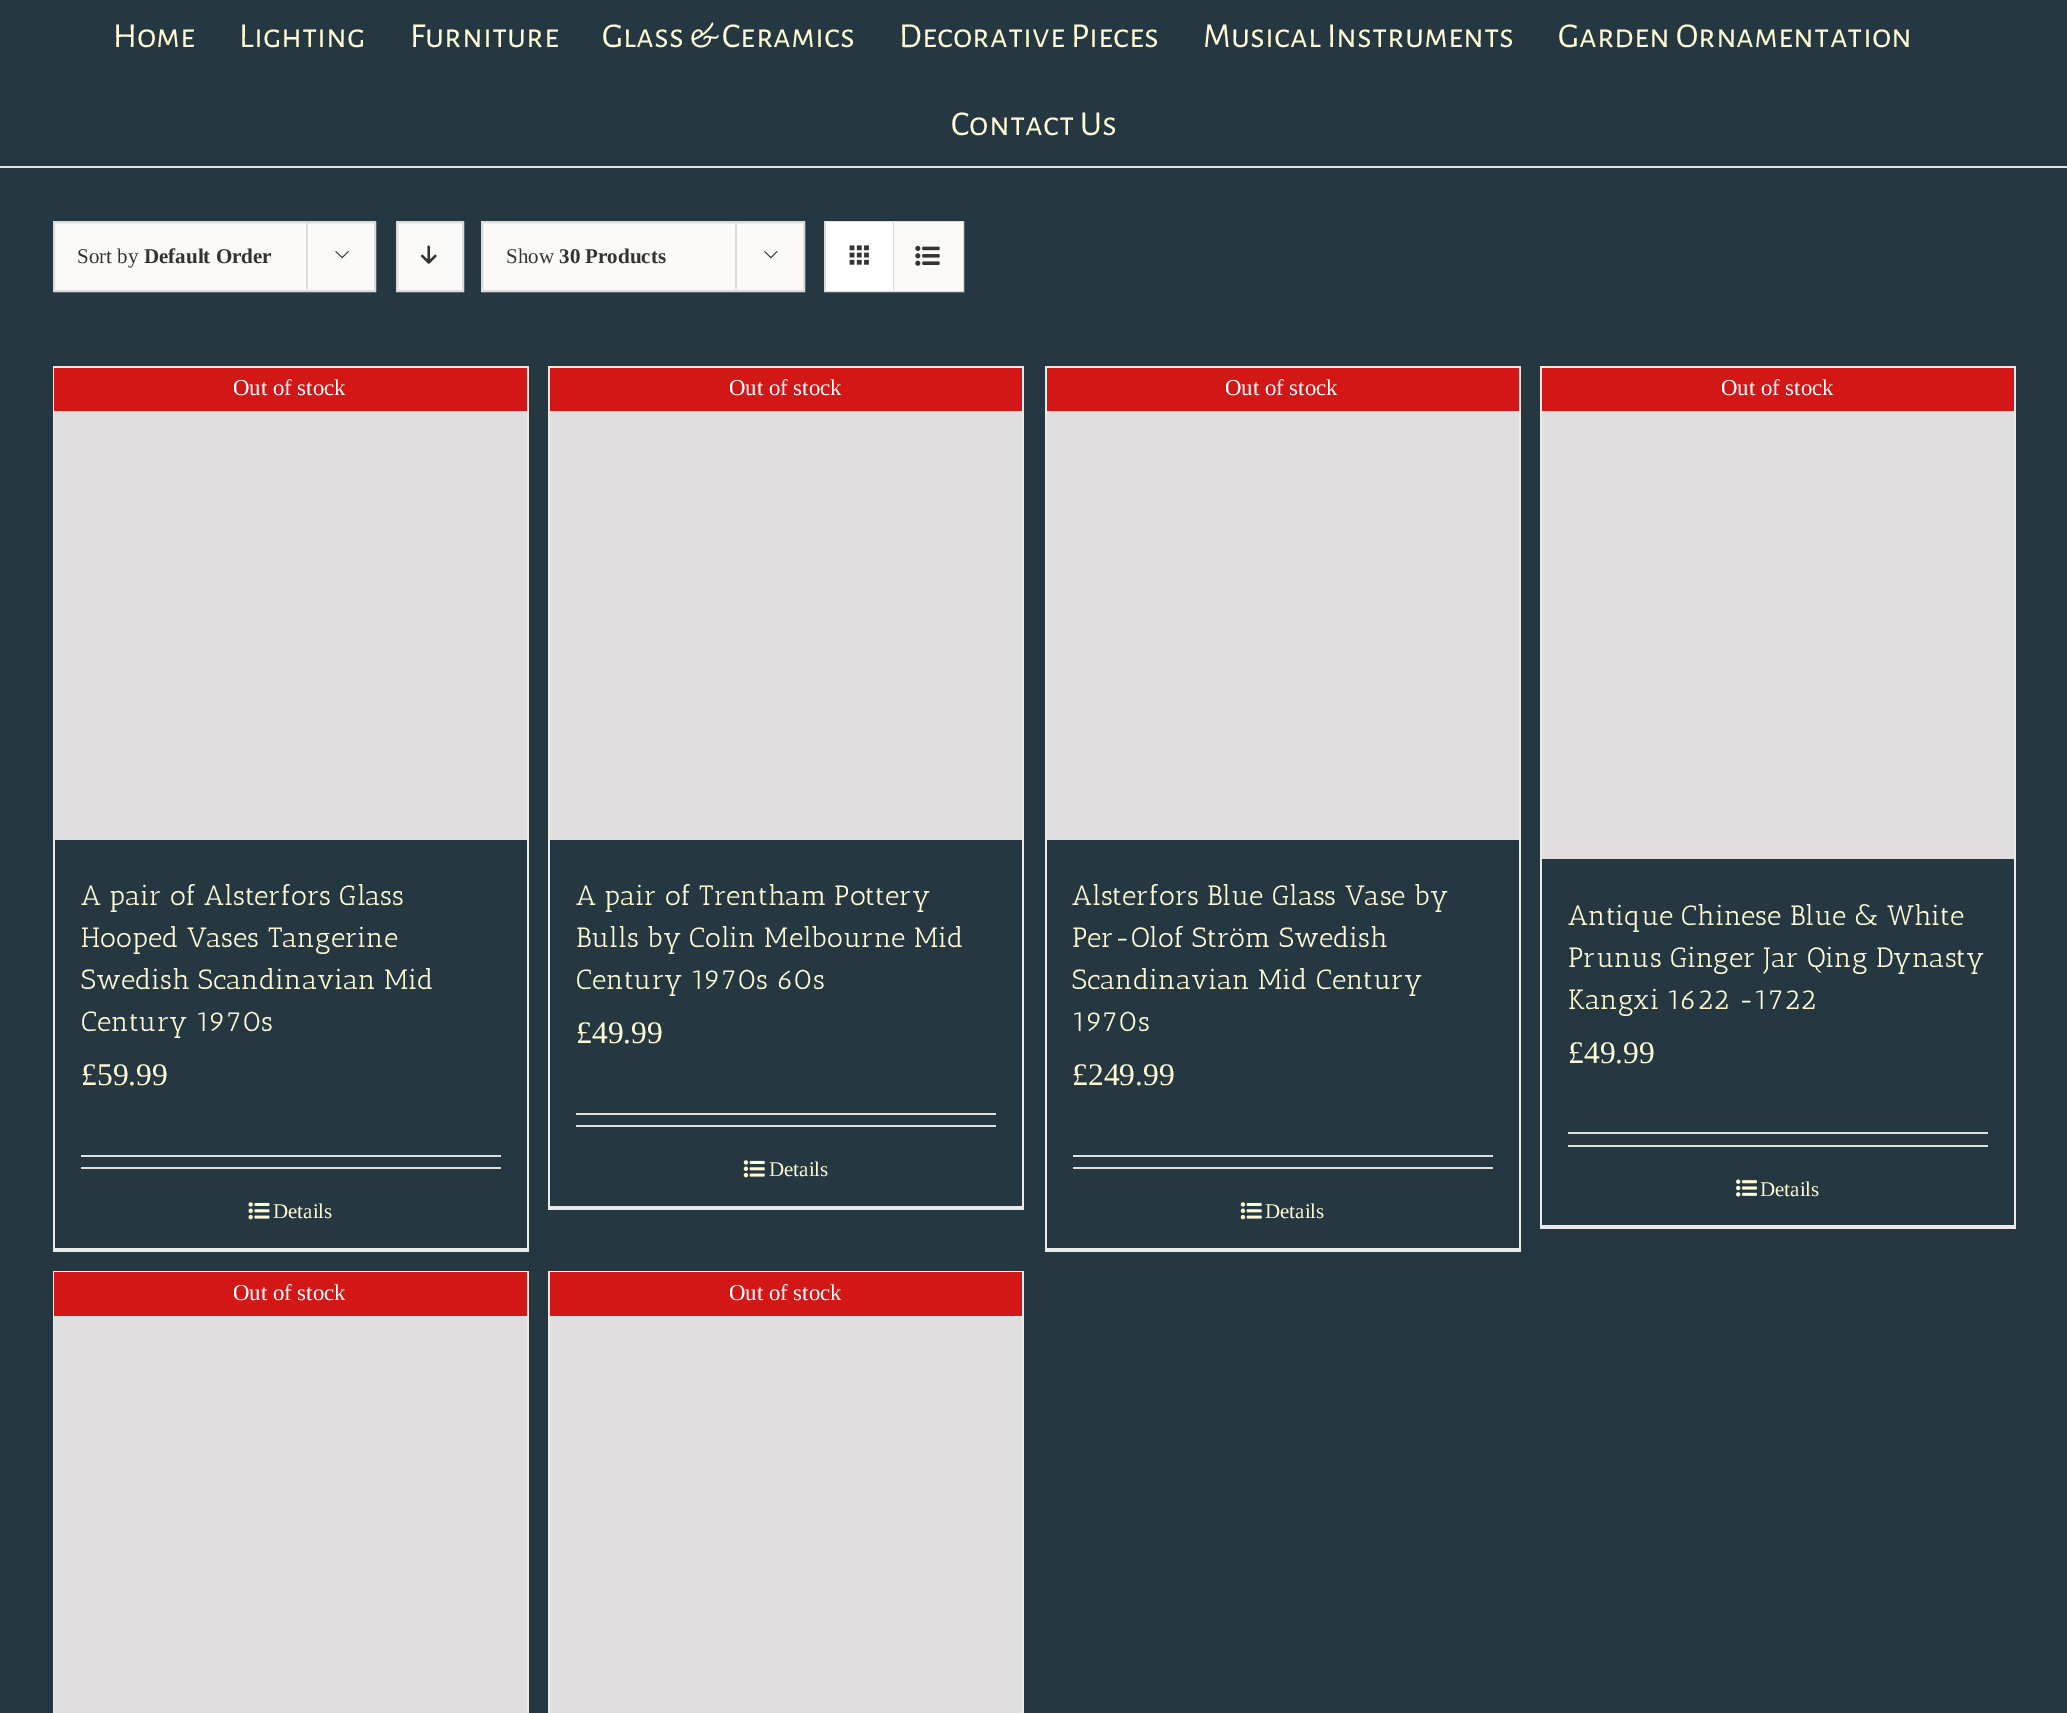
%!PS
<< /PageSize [2067 1713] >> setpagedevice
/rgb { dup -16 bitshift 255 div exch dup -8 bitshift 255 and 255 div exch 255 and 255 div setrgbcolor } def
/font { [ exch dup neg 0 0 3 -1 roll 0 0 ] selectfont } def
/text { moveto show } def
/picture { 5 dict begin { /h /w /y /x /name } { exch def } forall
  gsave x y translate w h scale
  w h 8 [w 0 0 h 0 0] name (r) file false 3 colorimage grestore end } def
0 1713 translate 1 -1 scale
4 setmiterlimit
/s1 { /AlegreyaSansSC-Regular 35 font 16#FFFCD5 rgb } def
/s2 { /LiberationSerif-Regular 21 font 16#333333 rgb } def
/s3 { /LiberationSerif-Bold 21 font 16#333333 rgb } def
/s4 { /LiberationSerif-Regular 22.75 font 16#FFFFFF rgb } def
/s5 { /AnticSlab-Regular 28 font 16#FFFCD5 rgb } def
/s6 { /LiberationSerif-Regular 31.5 font 16#FFFCD5 rgb } def
/s7 { /LiberationSerif-Regular 21 font 16#FFFCD5 rgb } def
16#253842 rgb
0 0 2067 1713 rectfill
16#E5E5E5 rgb
0 166 2067 2 rectfill
s1
(Home) 113 47 text
(Lighting) 239 47 text
(Furniture) 410 47 text
(Glass & Ceramics) 602 47 text
(Decorative Pieces) 899 47 text
(Musical Instruments) 1203 47 text
(Garden Ornamentation) 1558 47 text
(Contact Us) 951 135 text
16#FBFAF9 rgb
54 222 moveto 375 222 lineto 375 291 lineto 54 291 lineto closepath gsave fill grestore
16#DBDBDB rgb
2 setlinewidth
stroke
s2
(Sort by) 77 263 text
s3
(Default Order) 144 263 text
16#DBDBDB rgb
306 221 2 68 rectfill
(pic1.raw) 335 251 14 8 picture
16#FBFAF9 rgb
397 222 moveto 463 222 lineto 463 291 lineto 397 291 lineto closepath gsave fill grestore
16#DBDBDB rgb
stroke
(pic2.raw) 420 245 17 19 picture
16#FBFAF9 rgb
482 222 moveto 804 222 lineto 804 291 lineto 482 291 lineto closepath gsave fill grestore
16#DBDBDB rgb
stroke
s2
(Show) 506 263 text
s3
(30 Products) 559 263 text
16#DBDBDB rgb
735 221 2 68 rectfill
(pic3.raw) 764 251 14 8 picture
825 222 138 69 rectstroke
16#FFFFFF rgb
826 222 67 69 rectfill
16#DBDBDB rgb
893 222 1 69 rectfill
(pic4.raw) 849 245 20 20 picture
16#FBFAF9 rgb
894 222 69 69 rectfill
(pic5.raw) 915 245 25 21 picture
16#EBEAEA rgb
53 366 476 2 rectfill
527 366 2 885 rectfill
53 1248 476 4 rectfill
53 366 2 885 rectfill
16#D31616 rgb
54 368 473 43 rectfill
s4
(Out of stock) 233 395 text
16#E0DEDE rgb
54 411 473 429 rectfill
s5
(A pair of Alsterfors Glass) 81 905 text
(Hooped Vases Tangerine) 81 947 text
(Swedish Scandinavian Mid) 81 989 text
(Century 1970s) 81 1031 text
s6
(£59.99) 81 1085 text
16#E0DEDE rgb
81 1155 420 2 rectfill
81 1167 420 2 rectfill
(pic6.raw) 248 1202 22 18 picture
s7
(Details) 273 1218 text
16#EBEAEA rgb
548 366 476 2 rectfill
1022 366 2 843 rectfill
548 1206 476 4 rectfill
548 366 2 843 rectfill
16#D31616 rgb
550 368 472 43 rectfill
s4
(Out of stock) 729 395 text
16#E0DEDE rgb
550 411 472 429 rectfill
s5
(A pair of Trentham Pottery) 576 905 text
(Bulls by Colin Melbourne Mid) 576 947 text
(Century 1970s 60s) 576 989 text
s6
(£49.99) 576 1043 text
16#E0DEDE rgb
576 1113 420 2 rectfill
576 1125 420 2 rectfill
(pic7.raw) 743 1160 22 18 picture
s7
(Details) 769 1176 text
16#EBEAEA rgb
1045 366 476 2 rectfill
1519 366 2 885 rectfill
1045 1248 476 4 rectfill
1045 366 2 885 rectfill
16#D31616 rgb
1047 368 472 43 rectfill
s4
(Out of stock) 1225 395 text
16#E0DEDE rgb
1047 411 472 429 rectfill
s5
(Alsterfors Blue Glass Vase by) 1072 905 text
(Per-Olof Ström Swedish) 1072 947 text
(Scandinavian Mid Century) 1072 989 text
(1970s) 1072 1031 text
s6
(£249.99) 1072 1085 text
16#E0DEDE rgb
1073 1155 420 2 rectfill
1073 1167 420 2 rectfill
(pic7.raw) 1240 1202 22 18 picture
s7
(Details) 1265 1218 text
16#EBEAEA rgb
1540 366 476 2 rectfill
2014 366 2 863 rectfill
1540 1225 476 4 rectfill
1540 366 2 863 rectfill
16#D31616 rgb
1542 368 472 43 rectfill
s4
(Out of stock) 1721 395 text
16#E0DEDE rgb
1542 411 472 448 rectfill
s5
(Antique Chinese Blue & White) 1568 925 text
(Prunus Ginger Jar Qing Dynasty) 1568 967 text
(Kangxi 1622 -1722) 1568 1009 text
s6
(£49.99) 1568 1063 text
16#E0DEDE rgb
1568 1132 420 2 rectfill
1568 1145 420 2 rectfill
(pic8.raw) 1736 1179 21 18 picture
s7
(Details) 1760 1196 text
16#EBEAEA rgb
53 1271 476 1 rectfill
527 1271 2 442 rectfill
53 1271 2 442 rectfill
16#D31616 rgb
54 1272 473 44 rectfill
s4
(Out of stock) 233 1300 text
16#E0DEDE rgb
54 1316 473 397 rectfill
16#EBEAEA rgb
548 1271 476 1 rectfill
1022 1271 2 442 rectfill
548 1271 2 442 rectfill
16#D31616 rgb
550 1272 472 44 rectfill
s4
(Out of stock) 729 1300 text
16#E0DEDE rgb
550 1316 472 397 rectfill
showpage
